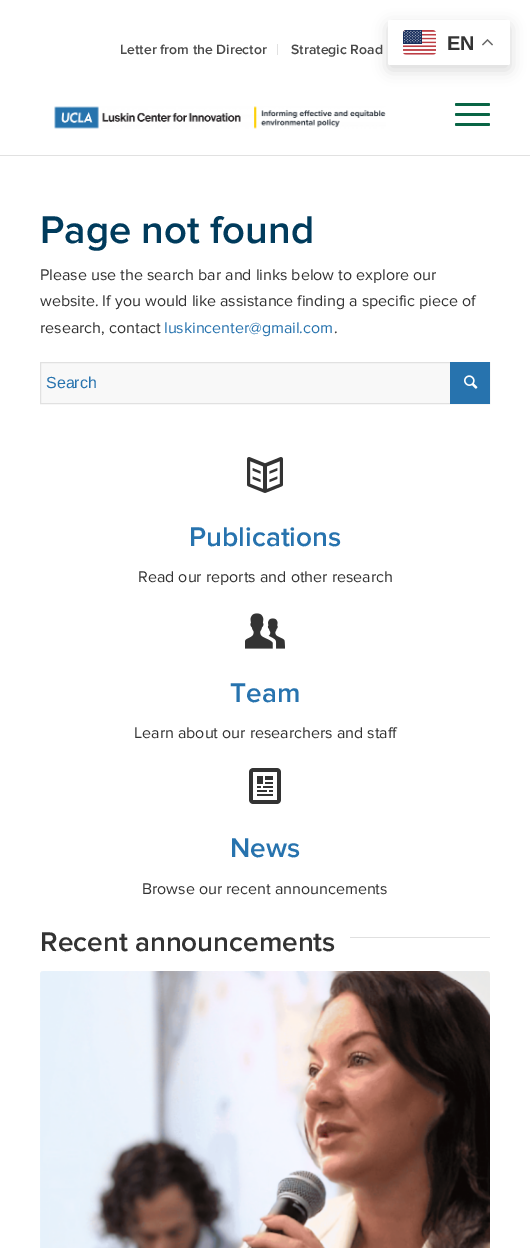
%!PS
<< /PageSize [530 1248] /PageUsesTransparency true >> setpagedevice
/rgb { dup -16 bitshift 255 div exch dup -8 bitshift 255 and 255 div exch 255 and 255 div setrgbcolor } def
/font { [ exch dup neg 0 0 3 -1 roll 0 0 ] selectfont } def
/text { moveto show } def
/alpha { dup .setfillconstantalpha .setstrokeconstantalpha } def
/roundrect { 5 dict begin { /r /h /w /y /x } { exch def } forall
  x r add y moveto x w add y 2 copy h add r arct x w add y h add x 1 index r arct
  x y h add x y r arct x y 2 copy exch w add exch r arct closepath end } def
/shadow { 12 dict begin { /a /b /q /h /w /y /x } { exch def } forall gsave /was 0 def
  9 -2 -9 { dup b mul 4 div /e exch def 1 sub .425 mul 2.718 exch exp 1 add a .99 .min exch div /now exch def
    1 1 now sub 1 was sub div sub alpha /was now def
    w h .min e 2 mul add 0 gt { x e sub y e sub w e 2 mul add h e 2 mul add
      q e add b .6 mul add w h .min 2 div e add .min 0 .max roundrect fill } if } for grestore end } def
/picture { 5 dict begin { /h /w /y /x /name } { exch def } forall
  gsave x y translate w h scale
  w h 8 [w 0 0 h 0 0] name (r) file false 3 colorimage grestore end } def
0 .pushpdf14devicefilter
0 1248 translate 1 -1 scale
4 setmiterlimit
/s1 { /LiberationSans-Bold 20 font 16#333333 rgb } def
/s2 { /ProximaNova-SemiBold 14 font 16#4A4A4A rgb } def
/s3 { /ProximaNova-SemiBold 40 font 16#003B5C rgb } def
/s4 { /ProximaNova-Regular 16 font 16#333333 rgb } def
/s5 { /ProximaNova-Regular 16 font 16#2773AE rgb } def
/s6 { /LiberationSans-Regular 16 font 16#2773AE rgb } def
/s7 { /ProximaNova-SemiBold 28 font 16#2773AE rgb } def
/s8 { /ProximaNova-SemiBold 28 font 16#333333 rgb } def
16#FFFFFF rgb
0 0 530 1248 rectfill
16#000000 rgb
388 25 122 45 2 7.5 0.15 shadow
16#FFFFFF rgb
388 20 122 45 2 roundrect fill
(pic1.raw) 403 30 33 25 picture
s1
(EN) 447 50 text
(pic2.raw) 482 39 11 7 picture
16#E1E1E1 rgb
277 44 1 11 rectfill
s2
(Letter from the Director) 120 54 text
(Strategic Road) 291 54 text
16#E1E1E1 rgb
0 155 530 1 rectfill
(pic3.raw) 54 106 332 23 picture
16#096545 rgb
455 113 35 3 1.5 roundrect fill
455 103 35 3 1.5 roundrect fill
455 123 35 3 1.5 roundrect fill
s3
(Page not found) 40 243 text
s4
(Please use the search bar and links below to explore our) 40 280 text
(website. If you would like assistance finding a specific piece of) 40 306 text
(research, contact) 40 333 text
s5
(luskincenter@gmail.com) 164 333 text
s4
(.) 334 333 text
16#F8F8F8 rgb
41 363 409 40 rectfill
16#E1E1E1 rgb
40.5 362.5 449 41 rectstroke
s6
(Search) 46 388 text
450 362 40 42 rectfill
(pic4.raw) 464 375 14 14 picture
(pic5.raw) 247 457 36 36 picture
s7
(Publications) 189 546 text
s4
(Read our reports and other research) 138 582 text
(pic6.raw) 245 613 40 36 picture
s7
(Team) 230 702 text
s4
(Learn about our researchers and staff) 134 738 text
(pic7.raw) 249 768 32 36 picture
s7
(News) 230 857 text
s4
(Browse our recent announcements) 142 894 text
s8
(Recent announcements) 40 951 text
16#E0E0E0 rgb
350 937 140 1 rectfill
(pic8.raw) 40 971 450 277 picture
.poppdf14devicefilter showpage
